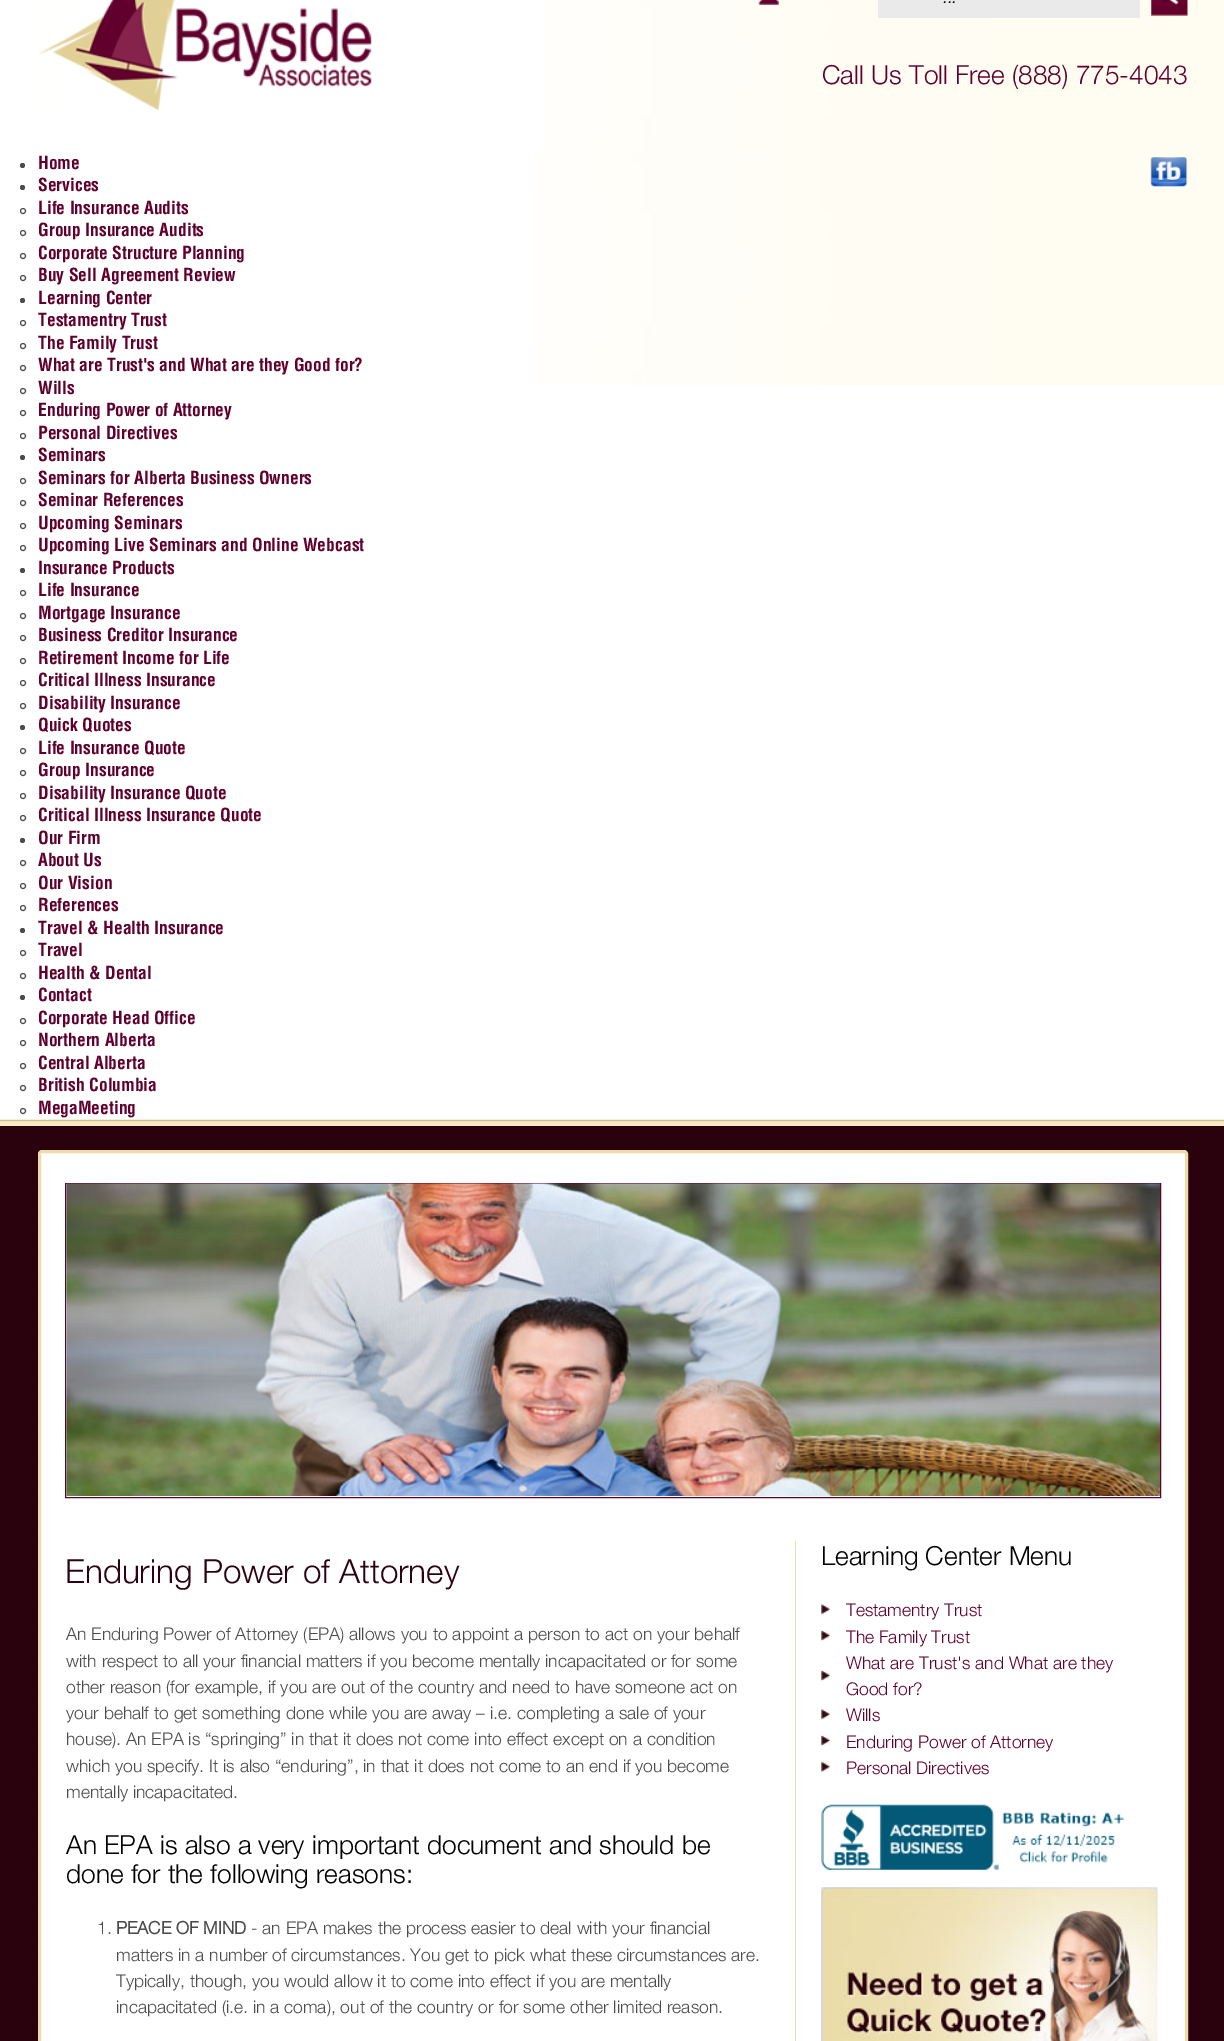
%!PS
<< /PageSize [1224 2041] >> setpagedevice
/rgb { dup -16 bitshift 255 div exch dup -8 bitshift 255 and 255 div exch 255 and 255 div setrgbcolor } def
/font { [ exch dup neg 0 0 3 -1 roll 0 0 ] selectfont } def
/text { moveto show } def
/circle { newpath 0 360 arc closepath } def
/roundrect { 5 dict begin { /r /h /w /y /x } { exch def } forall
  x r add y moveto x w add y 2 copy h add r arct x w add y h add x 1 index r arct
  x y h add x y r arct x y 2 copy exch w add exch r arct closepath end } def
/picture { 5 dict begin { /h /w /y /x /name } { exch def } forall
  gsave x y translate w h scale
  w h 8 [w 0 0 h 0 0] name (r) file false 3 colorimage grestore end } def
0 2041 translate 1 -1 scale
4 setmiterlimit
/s1 { /LiberationSans-Italic 17 font 16#000000 rgb } def
/s2 { /HelveticaNeue-Light 26.25 font 16#61002C rgb } def
/s3 { /Helvetica-Bold 17.5 font 16#61002C rgb } def
/s4 { /HelveticaNeue-Light 33.25 font 16#2B020D rgb } def
/s5 { /HelveticaNeue-Light 17.5 font 16#4B4B4B rgb } def
/s6 { /HelveticaNeue-Light 26.25 font 16#000000 rgb } def
/s7 { /HelveticaNeue-Bold 17.5 font 16#4B4B4B rgb } def
/s8 { /HelveticaNeue-Light 17.5 font 16#61002C rgb } def
16#FFFFFF rgb
0 0 1224 2041 rectfill
(pic1.raw) 543 0 681 152 picture
(pic2.raw) 38 0 334 111 picture
(pic3.raw) 758 0 21 5 picture
16#EAEAEA rgb
878 0 262 18 rectfill
s1
(...) 943 3 text
(pic4.raw) 1151 0 37 16 picture
s2
(Call Us Toll Free \(888\) 775-4043) 822 84 text
(pic6.raw) 533 152 691 233 picture
(pic5.raw) 1150 157 38 30 picture
16#4B4B4B rgb
22.5 165.5 2.5 circle fill
s3
(Home) 38 169 text
16#4B4B4B rgb
22.5 187.5 2.5 circle fill
s3
(Services) 38 191 text
16#4B4B4B rgb
23 211 2.5 circle stroke
s3
(Life Insurance Audits) 38 214 text
16#4B4B4B rgb
23 233 2.5 circle stroke
s3
(Group Insurance Audits) 38 236 text
16#4B4B4B rgb
23 256 2.5 circle stroke
s3
(Corporate Structure Planning) 38 259 text
16#4B4B4B rgb
23 278 2.5 circle stroke
s3
(Buy Sell Agreement Review) 38 281 text
16#4B4B4B rgb
22.5 300.5 2.5 circle fill
s3
(Learning Center) 38 304 text
16#4B4B4B rgb
23 323 2.5 circle stroke
s3
(Testamentry Trust) 38 326 text
16#4B4B4B rgb
23 346 2.5 circle stroke
s3
(The Family Trust) 38 349 text
16#4B4B4B rgb
23 368 2.5 circle stroke
s3
(What are Trust's and What are they Good for?) 38 371 text
16#4B4B4B rgb
23 391 2.5 circle stroke
s3
(Wills) 38 394 text
16#4B4B4B rgb
23 413 2.5 circle stroke
s3
(Enduring Power of Attorney) 38 416 text
16#4B4B4B rgb
23 436 2.5 circle stroke
s3
(Personal Directives) 38 439 text
16#4B4B4B rgb
22.5 457.5 2.5 circle fill
s3
(Seminars) 38 461 text
16#4B4B4B rgb
23 481 2.5 circle stroke
s3
(Seminars for Alberta Business Owners) 38 484 text
16#4B4B4B rgb
23 503 2.5 circle stroke
s3
(Seminar References) 38 506 text
16#4B4B4B rgb
23 526 2.5 circle stroke
s3
(Upcoming Seminars) 38 529 text
16#4B4B4B rgb
23 548 2.5 circle stroke
s3
(Upcoming Live Seminars and Online Webcast) 38 551 text
16#4B4B4B rgb
22.5 570.5 2.5 circle fill
s3
(Insurance Products) 38 574 text
16#4B4B4B rgb
23 593 2.5 circle stroke
s3
(Life Insurance) 38 596 text
16#4B4B4B rgb
23 616 2.5 circle stroke
s3
(Mortgage Insurance) 38 619 text
16#4B4B4B rgb
23 638 2.5 circle stroke
s3
(Business Creditor Insurance) 38 641 text
16#4B4B4B rgb
23 661 2.5 circle stroke
s3
(Retirement Income for Life) 38 664 text
16#4B4B4B rgb
23 683 2.5 circle stroke
s3
(Critical Illness Insurance) 38 686 text
16#4B4B4B rgb
23 706 2.5 circle stroke
s3
(Disability Insurance) 38 709 text
16#4B4B4B rgb
22.5 727.5 2.5 circle fill
s3
(Quick Quotes) 38 731 text
16#4B4B4B rgb
23 751 2.5 circle stroke
s3
(Life Insurance Quote) 38 754 text
16#4B4B4B rgb
23 773 2.5 circle stroke
s3
(Group Insurance) 38 776 text
16#4B4B4B rgb
23 796 2.5 circle stroke
s3
(Disability Insurance Quote) 38 799 text
16#4B4B4B rgb
23 818 2.5 circle stroke
s3
(Critical Illness Insurance Quote) 38 821 text
16#4B4B4B rgb
22.5 840.5 2.5 circle fill
s3
(Our Firm) 38 844 text
16#4B4B4B rgb
23 863 2.5 circle stroke
s3
(About Us) 38 866 text
16#4B4B4B rgb
23 886 2.5 circle stroke
s3
(Our Vision) 38 889 text
16#4B4B4B rgb
23 908 2.5 circle stroke
s3
(References) 38 911 text
16#4B4B4B rgb
22.5 930.5 2.5 circle fill
s3
(Travel & Health Insurance) 38 934 text
16#4B4B4B rgb
23 953 2.5 circle stroke
s3
(Travel) 38 956 text
16#4B4B4B rgb
23 976 2.5 circle stroke
s3
(Health & Dental) 38 979 text
16#4B4B4B rgb
22.5 997.5 2.5 circle fill
s3
(Contact) 38 1001 text
16#4B4B4B rgb
23 1021 2.5 circle stroke
s3
(Corporate Head Office) 38 1024 text
16#4B4B4B rgb
23 1043 2.5 circle stroke
s3
(Northern Alberta) 38 1046 text
16#4B4B4B rgb
23 1066 2.5 circle stroke
s3
(Central Alberta) 38 1069 text
16#4B4B4B rgb
23 1088 2.5 circle stroke
s3
(British Columbia) 38 1091 text
16#4B4B4B rgb
23 1111 2.5 circle stroke
s3
(MegaMeeting) 38 1114 text
(pic7.raw) 0 1119 1224 7 picture
(pic8.raw) 0 1126 1224 915 picture
16#FFFFFF rgb
39.5 1151.5 1147 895 2.5 roundrect gsave fill grestore
16#EBDCA9 rgb
3 setlinewidth
stroke
16#61002C rgb
1 setlinewidth
65.5 1183.5 1095 314 rectstroke
(pic9.raw) 66 1183 1094 313 picture
s4
(Enduring Power of Attorney) 65 1583 text
s5
(An Enduring Power of Attorney \(EPA\) allows you to appoint a person to act on your behalf) 66 1640 text
(with respect to all your financial matters if you become mentally incapacitated or for some) 66 1667 text
(other reason \(for example, if you are out of the country and need to have someone act on) 66 1693 text
(your behalf to get something done while you are away – i.e. completing a sale of your) 66 1719 text
(house\). An EPA is “springing” in that it does not come into effect except on a condition) 66 1745 text
(which you specify. It is also “enduring”, in that it does not come to an end if you become) 66 1772 text
(mentally incapacitated.) 66 1798 text
s6
(An EPA is also a very important document and should be) 66 1854 text
(done for the following reasons:) 66 1883 text
s5
(1.) 97 1934 text
s7
(PEACE OF MIND) 116 1934 text
s5
(- an EPA makes the process easier to deal with your financial) 251 1934 text
(matters in a number of circumstances. You get to pick what these circumstances are.) 116 1961 text
(Typically, though, you would allow it to come into effect if you are mentally) 116 1987 text
(incapacitated \(i.e. in a coma\), out of the country or for some other limited reason.) 116 2013 text
16#EADDA9 rgb
795 1541 1 500 rectfill
s6
(Learning Center Menu) 821 1565 text
(pic10.raw) 821 1603 9 12 picture
s8
(Testamentry Trust) 846 1616 text
(pic11.raw) 821 1630 9 11 picture
(The Family Trust) 846 1643 text
(pic11.raw) 821 1670 9 11 picture
(What are Trust's and What are they) 846 1669 text
(Good for?) 846 1695 text
(pic10.raw) 821 1708 9 12 picture
(Wills) 846 1721 text
(pic11.raw) 821 1735 9 11 picture
(Enduring Power of Attorney) 846 1748 text
(pic12.raw) 821 1761 9 12 picture
(Personal Directives) 846 1774 text
(pic13.raw) 821 1804 303 66 picture
(pic14.raw) 821 1887 337 154 picture
showpage
